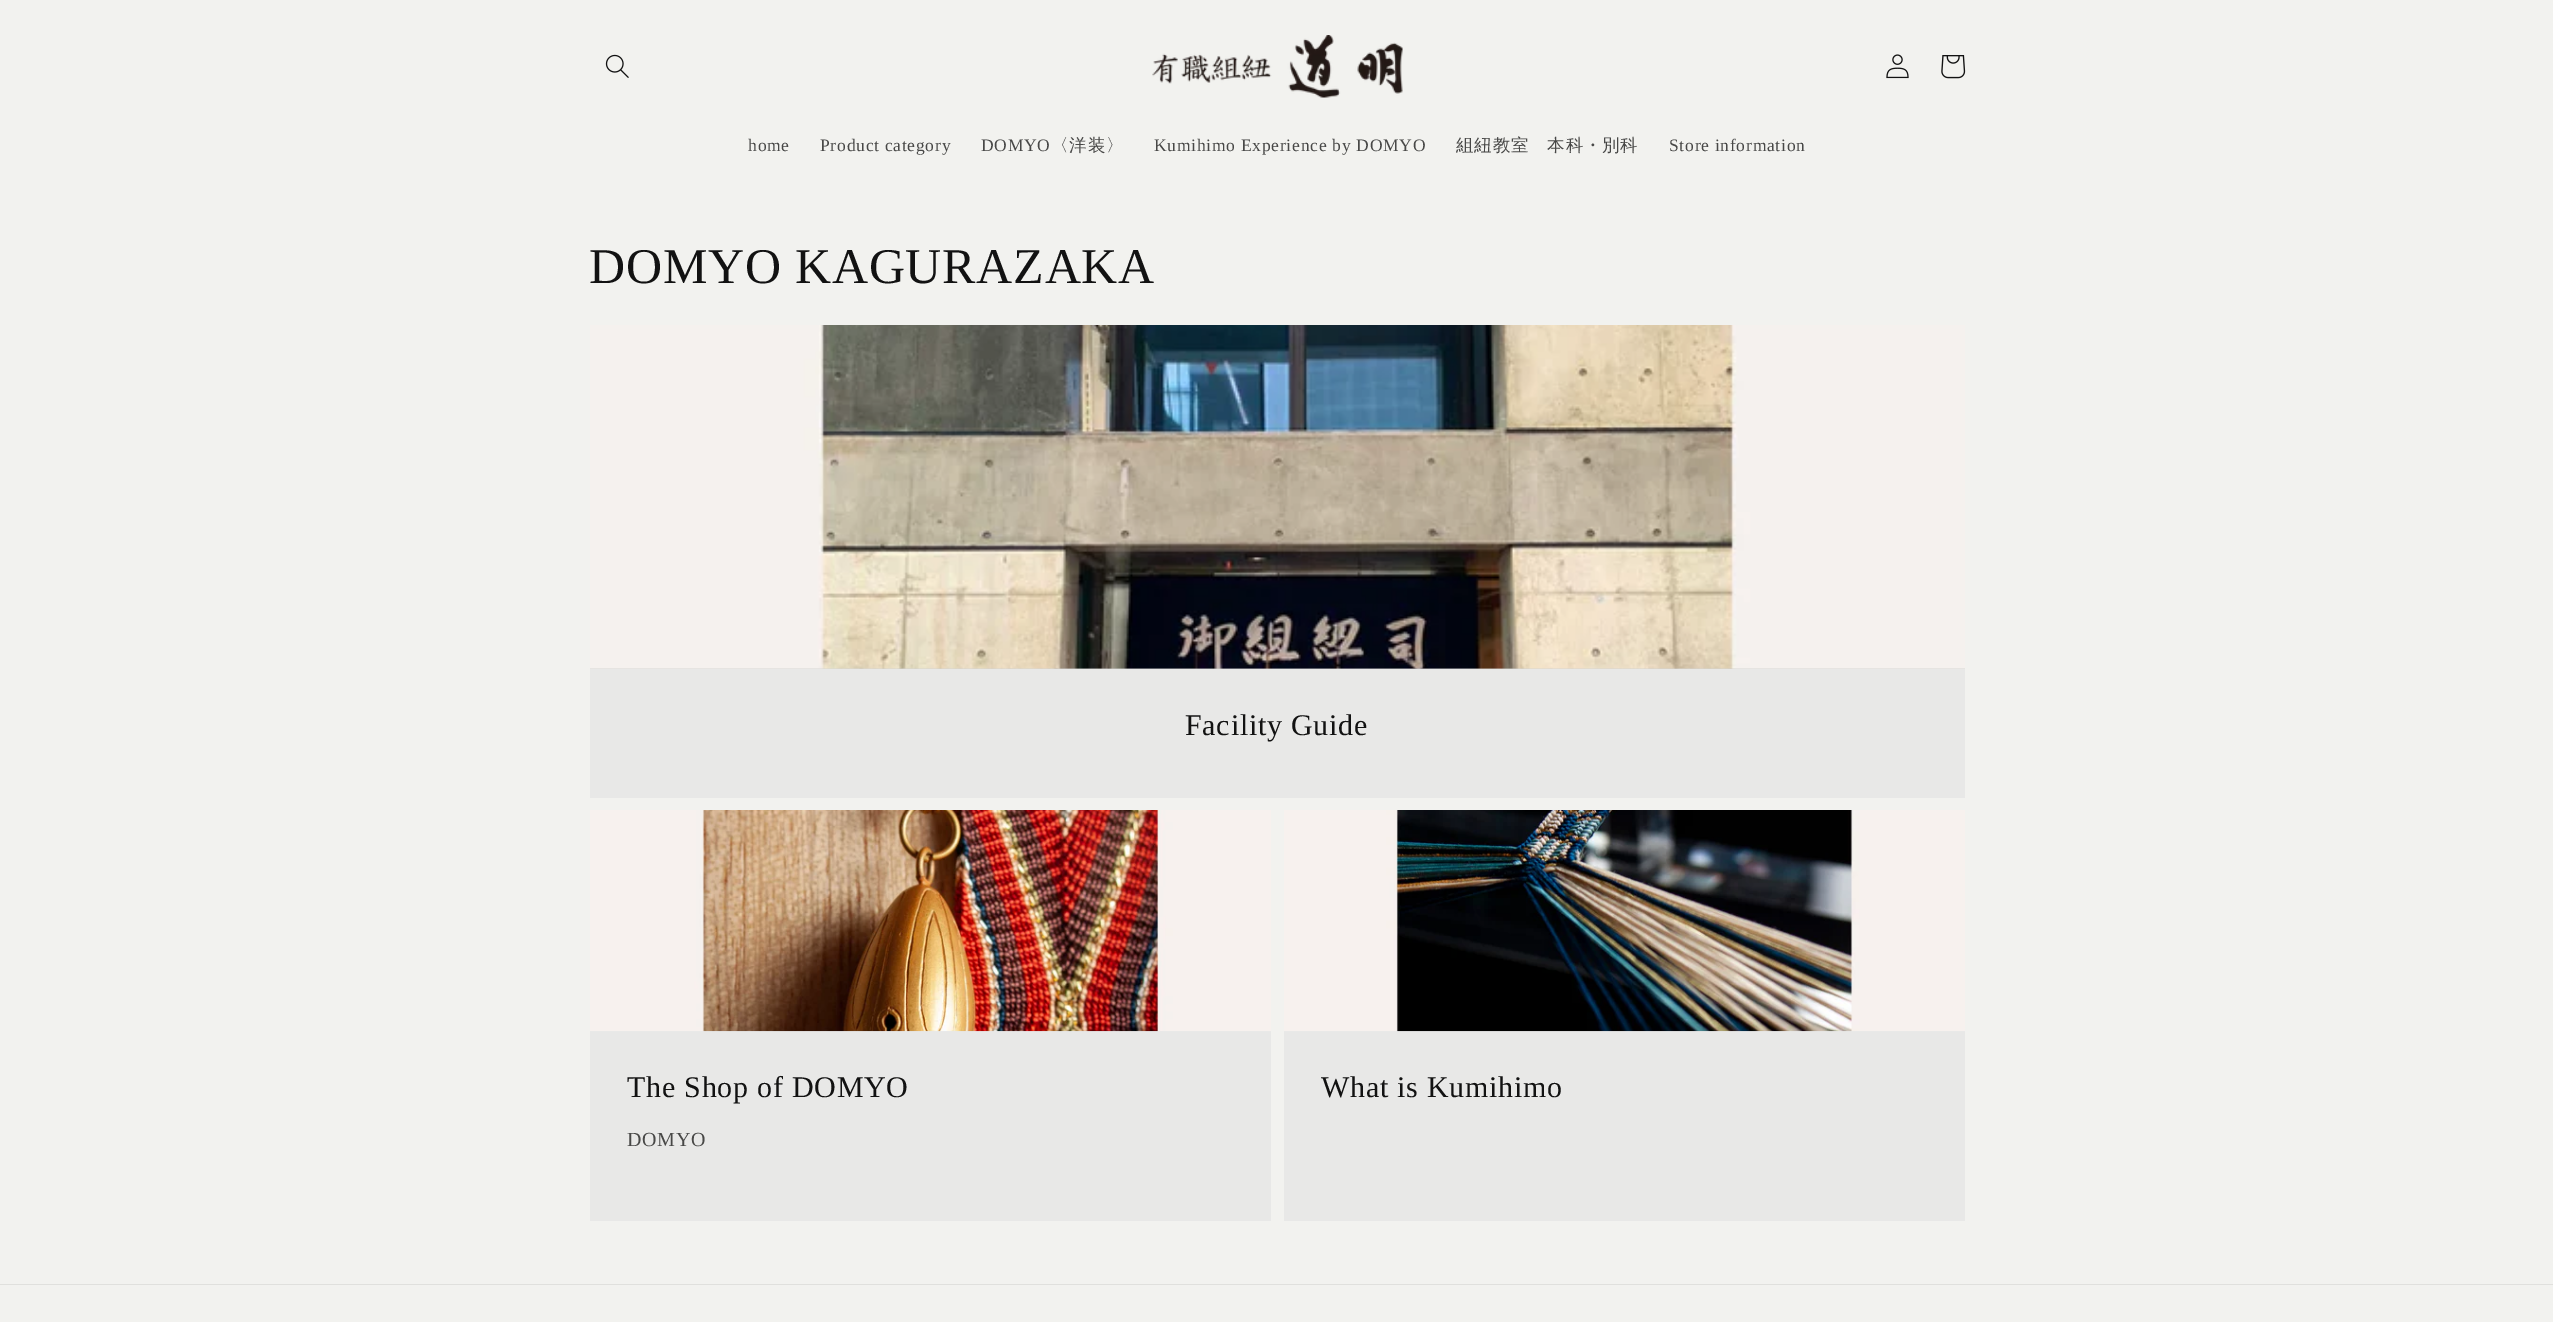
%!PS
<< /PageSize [2553 1322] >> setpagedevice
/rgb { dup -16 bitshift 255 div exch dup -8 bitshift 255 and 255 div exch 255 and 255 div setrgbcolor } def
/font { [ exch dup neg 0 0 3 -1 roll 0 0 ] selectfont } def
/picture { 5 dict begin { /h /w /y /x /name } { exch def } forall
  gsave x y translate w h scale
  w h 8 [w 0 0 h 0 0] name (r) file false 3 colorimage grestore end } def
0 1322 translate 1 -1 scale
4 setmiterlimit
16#F2F2EF rgb
0 0 2553 1322 rectfill
(pic1.raw) 605 54 24 24 picture
(pic2.raw) 1152 35 251 63 picture
(pic3.raw) 1886 54 23 25 picture
(pic4.raw) 1941 55 25 24 picture
/LiberationSerif-Regular 17.5 font
16#484847 rgb
748 151 moveto 0.75 0 (home) ashow
820 151 moveto 0.75 0 (Product category) ashow
981 151 moveto 0.75 0 (DOMYO) ashow
/WenQuanYiZenHei-Medium 17.5 font
1051 151 moveto 0.75 0 (〈洋装〉) ashow
/LiberationSerif-Regular 17.5 font
1154 151 moveto 0.75 0 (Kumihimo Experience by DOMYO) ashow
/WenQuanYiZenHei-Medium 17.5 font
1456 151 moveto 0.75 0 (組紐教室　本科・別科) ashow
/LiberationSerif-Regular 17.5 font
1669 151 moveto 0.75 0 (Store information) ashow
/LiberationSerif-Regular 50 font
16#121212 rgb
589 283 moveto 0.75 0 (DOMYO KAGURAZAKA) ashow
16#E8E8E7 rgb
590 669 1375 129 rectfill
16#D3D3D2 rgb
590 668 1375 1 rectfill
(pic5.raw) 590 325 1375 344 picture
/LiberationSerif-Regular 30 font
16#121212 rgb
1185 735 moveto 0.75 0 (Facility Guide) ashow
16#E8E8E7 rgb
590 1031 681 190 rectfill
(pic6.raw) 590 810 681 222 picture
16#121212 rgb
627 1097 moveto 0.75 0 (The Shop of DOMYO) ashow
/LiberationSerif-Regular 20 font
16#484847 rgb
627 1146 moveto 0.75 0 (DOMYO) ashow
16#E8E8E7 rgb
1284 1031 681 190 rectfill
(pic7.raw) 1284 810 681 222 picture
/LiberationSerif-Regular 30 font
16#121212 rgb
1321 1097 moveto 0.75 0 (What is Kumihimo) ashow
16#E0E0DD rgb
0 1284 2553 1 rectfill
showpage
